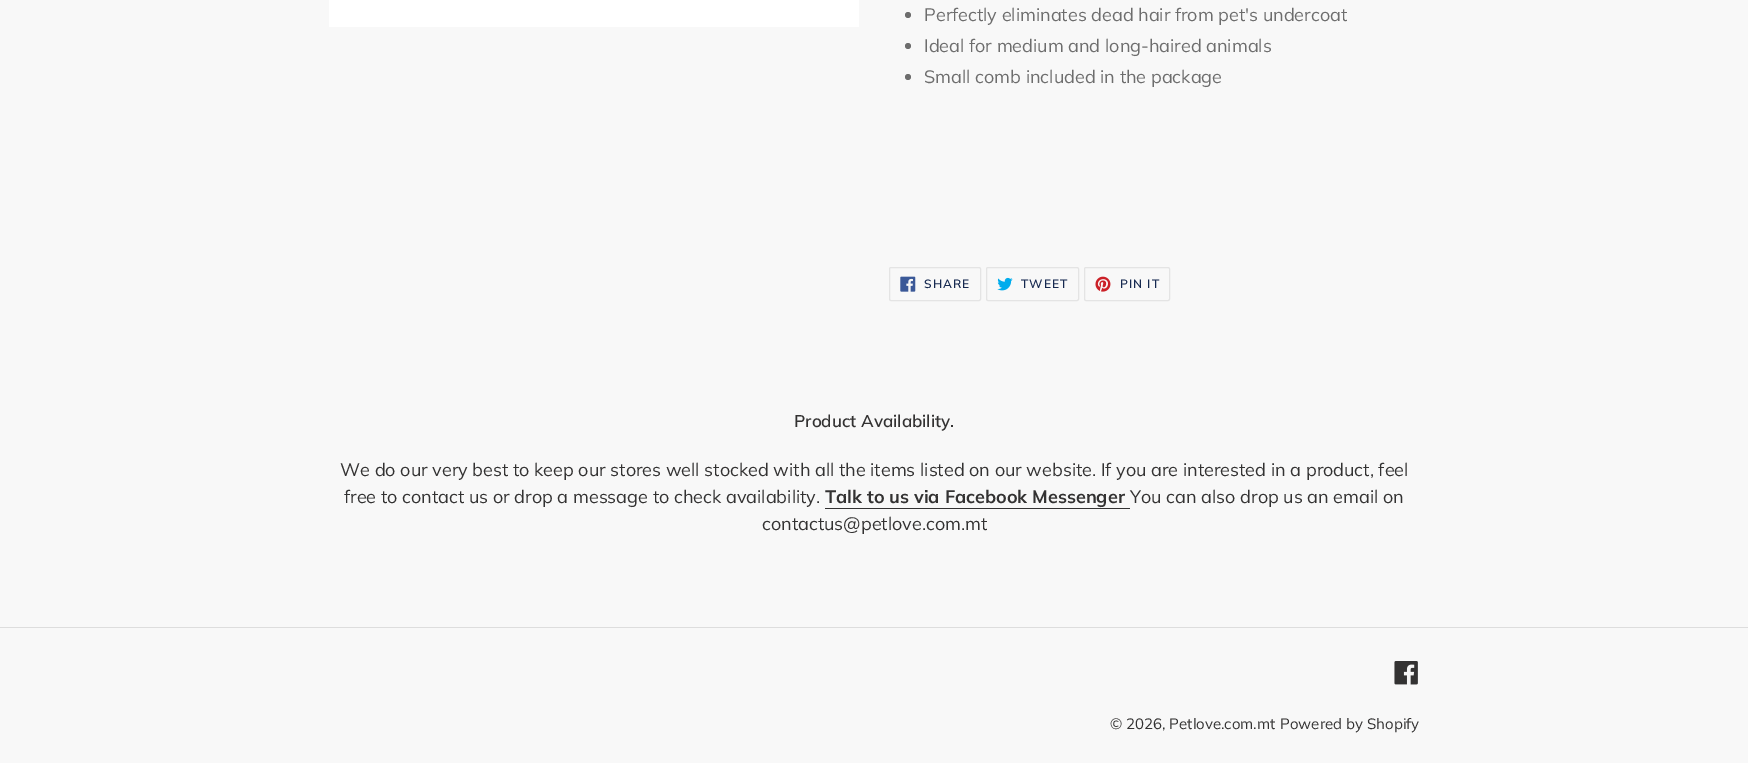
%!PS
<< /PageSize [1748 763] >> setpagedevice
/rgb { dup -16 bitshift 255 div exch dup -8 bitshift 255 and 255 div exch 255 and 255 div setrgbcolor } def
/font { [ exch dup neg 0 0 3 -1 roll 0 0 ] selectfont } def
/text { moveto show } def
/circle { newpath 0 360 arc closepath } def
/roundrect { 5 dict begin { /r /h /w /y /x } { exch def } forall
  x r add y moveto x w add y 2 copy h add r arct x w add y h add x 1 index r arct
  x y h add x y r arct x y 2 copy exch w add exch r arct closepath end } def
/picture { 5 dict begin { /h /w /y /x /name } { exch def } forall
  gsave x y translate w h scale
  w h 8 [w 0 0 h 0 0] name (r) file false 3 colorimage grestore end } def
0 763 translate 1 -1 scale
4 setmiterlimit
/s1 { /Muli-Regular 18 font 16#6D6D6D rgb } def
/s2 { /Muli-SemiBold 17 font 16#333232 rgb } def
/s3 { /Muli-Regular 18 font 16#333232 rgb } def
/s4 { /Muli-Bold 18 font 16#333232 rgb } def
/s5 { /Muli-Regular 15 font 16#333232 rgb } def
16#F8F8F8 rgb
0 0 1748 763 rectfill
16#FFFFFF rgb
329 0 530 27 rectfill
16#6D6D6D rgb
908 15 3 circle fill
s1
(Perfectly eliminates dead hair from pet's undercoat) 924 21 text
908 46 3 circle fill
(Ideal for medium and long-haired animals) 924 52 text
908 77 3 circle fill
(Small comb included in the package) 924 83 text
16#E4E4E4 rgb
889.5 267.5 91 33 1.5 roundrect stroke
(pic1.raw) 900 276 16 16 picture
/Muli-SemiBold 12 font
16#162950 rgb
924 288 moveto 1 0 (SHARE) ashow
16#E4E4E4 rgb
986.5 267.5 92 33 1.5 roundrect stroke
(pic2.raw) 997 277 16 14 picture
16#162950 rgb
1021 288 moveto 1 0 (TWEET) ashow
16#E4E4E4 rgb
1084.5 267.5 85 33 1.5 roundrect stroke
(pic3.raw) 1095 276 16 16 picture
16#162950 rgb
1120 288 moveto 1 0 (PIN IT) ashow
s2
(Product Availability.) 794 427 text
s3
(We do our very best to keep our stores well stocked with all the items listed on our website. If you are interested in a product, feel) 340 476 text
(free to contact us or drop a message to check availability.) 344 503 text
s4
(Talk to us via Facebook Messenger) 825 503 text
825 508 305 1 rectfill
s3
(You can also drop us an email on) 1130 503 text
(contactus@petlove.com.mt) 762 530 text
16#DDDDDD rgb
0 627 1748 1 rectfill
(pic4.raw) 1394 661 24 24 picture
s5
(© 2026, Petlove.com.mt) 1110 729 text
(Powered by Shopify) 1280 729 text
showpage
